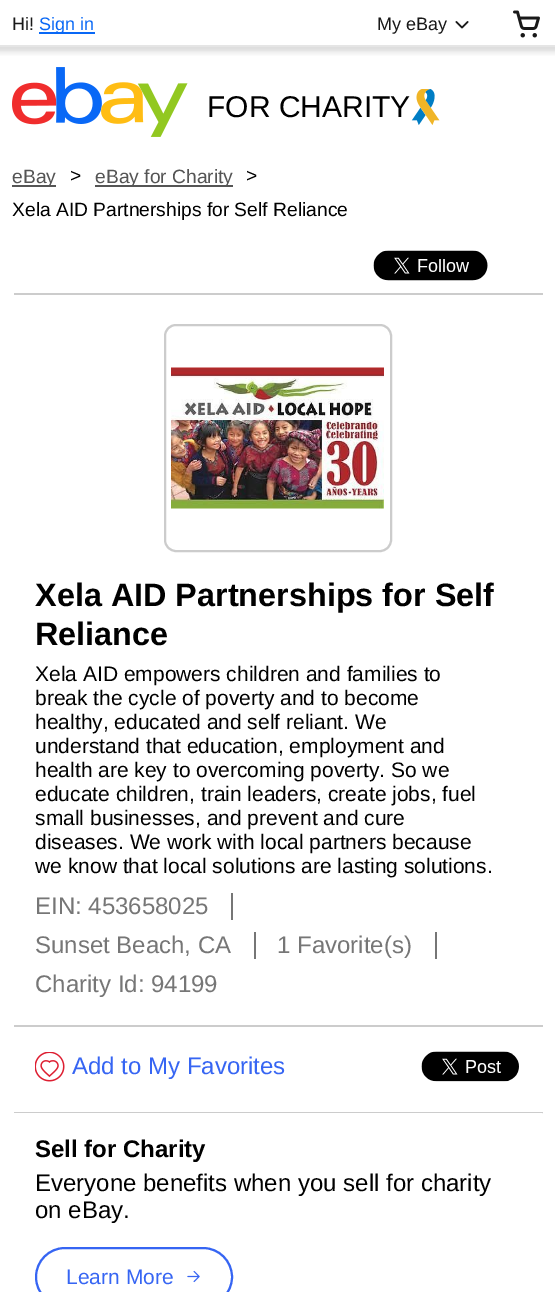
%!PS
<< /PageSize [555 1292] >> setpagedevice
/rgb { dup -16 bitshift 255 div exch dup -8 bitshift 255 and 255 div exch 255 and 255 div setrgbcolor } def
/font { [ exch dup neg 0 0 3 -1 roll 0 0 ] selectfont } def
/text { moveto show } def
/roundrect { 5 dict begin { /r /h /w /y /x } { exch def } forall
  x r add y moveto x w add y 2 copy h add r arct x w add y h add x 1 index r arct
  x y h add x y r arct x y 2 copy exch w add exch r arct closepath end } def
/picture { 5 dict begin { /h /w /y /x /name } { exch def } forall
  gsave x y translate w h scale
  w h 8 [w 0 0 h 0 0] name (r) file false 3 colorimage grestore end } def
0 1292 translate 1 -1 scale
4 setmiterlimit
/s1 { /LiberationSans-Regular 18 font 16#191919 rgb } def
/s2 { /LiberationSans-Regular 18 font 16#0968F6 rgb } def
/s3 { /LiberationSans-Regular 30 font 16#000000 rgb } def
/s4 { /LiberationSans-Regular 19.25 font 16#555555 rgb } def
/s5 { /LiberationSans-Regular 19.25 font 16#000000 rgb } def
/s6 { /LiberationSans-Bold 32.4 font 16#000000 rgb } def
/s7 { /LiberationSans-Regular 21 font 16#000000 rgb } def
/s8 { /LiberationSans-Regular 24 font 16#767676 rgb } def
/s9 { /LiberationSans-Regular 24 font 16#3665F3 rgb } def
/s10 { /LiberationSans-Bold 24 font 16#000000 rgb } def
/s11 { /LiberationSans-Regular 24 font 16#000000 rgb } def
/s12 { /LiberationSans-Regular 21 font 16#3665F3 rgb } def
16#FFFFFF rgb
0 0 555 1292 rectfill
(pic1.raw) 0 47 555 9 picture
s1
(Hi!) 12 30 text
16#0968F6 rgb
39 32 56 2 rectfill
(Sign in) 39 30 text
s1
(My eBay) 377 30 text
(pic2.raw) 455 21 14 8 picture
(pic3.raw) 513 10 27 28 picture
(pic4.raw) 12 67 176 70 picture
s3
(FOR CHARITY) 207 117 text
(pic5.raw) 411 89 29 36 picture
16#555555 rgb
12 185 44 2 rectfill
s4
(eBay) 12 183 text
s5
(>) 70 182 text
16#555555 rgb
95 185 138 2 rectfill
(eBay for Charity) 95 183 text
s5
(>) 246 182 text
(Xela AID Partnerships for Self Reliance) 12 216 text
(pic6.raw) 373 250 115 31 picture
16#CCCCCC rgb
14 293 529 2 rectfill
14 1112 529 2 rectfill
2 setlinewidth
165 325 226 226 11 roundrect stroke
(pic7.raw) 171 367 213 142 picture
s6
(Xela AID Partnerships for Self) 35 606 text
(Reliance) 35 645 text
s7
(Xela AID empowers children and families to) 35 681 text
(break the cycle of poverty and to become) 35 705 text
(healthy, educated and self reliant. We) 35 729 text
(understand that education, employment and) 35 753 text
(health are key to overcoming poverty. So we) 35 777 text
(educate children, train leaders, create jobs, fuel) 35 801 text
(small businesses, and prevent and cure) 35 825 text
(diseases. We work with local partners because) 35 849 text
(we know that local solutions are lasting solutions.) 35 873 text
16#767676 rgb
231 893 2 27 rectfill
s8
(EIN: 453658025) 35 914 text
254 932 2 27 rectfill
(Sunset Beach, CA) 35 953 text
435 932 2 27 rectfill
(1 Favorite\(s\)) 277 953 text
(Charity Id: 94199) 35 992 text
16#CCCCCC rgb
14 1025 529 2 rectfill
(pic8.raw) 35 1052 30 30 picture
s9
(Add to My Favorites) 72 1074 text
(pic9.raw) 421 1051 98 31 picture
16#FFFFFF rgb
12 1113 531 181 1.5 roundrect fill
s10
(Sell for Charity) 35 1157 text
s11
(Everyone benefits when you sell for charity) 35 1191 text
(on eBay.) 35 1218 text
16#3665F3 rgb
36 1248 196 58 29 roundrect stroke
s12
(Learn More) 66 1284 text
(pic10.raw) 187 1270 13 13 picture
16#E5E5E5 rgb
0 45 555 2 rectfill
showpage
